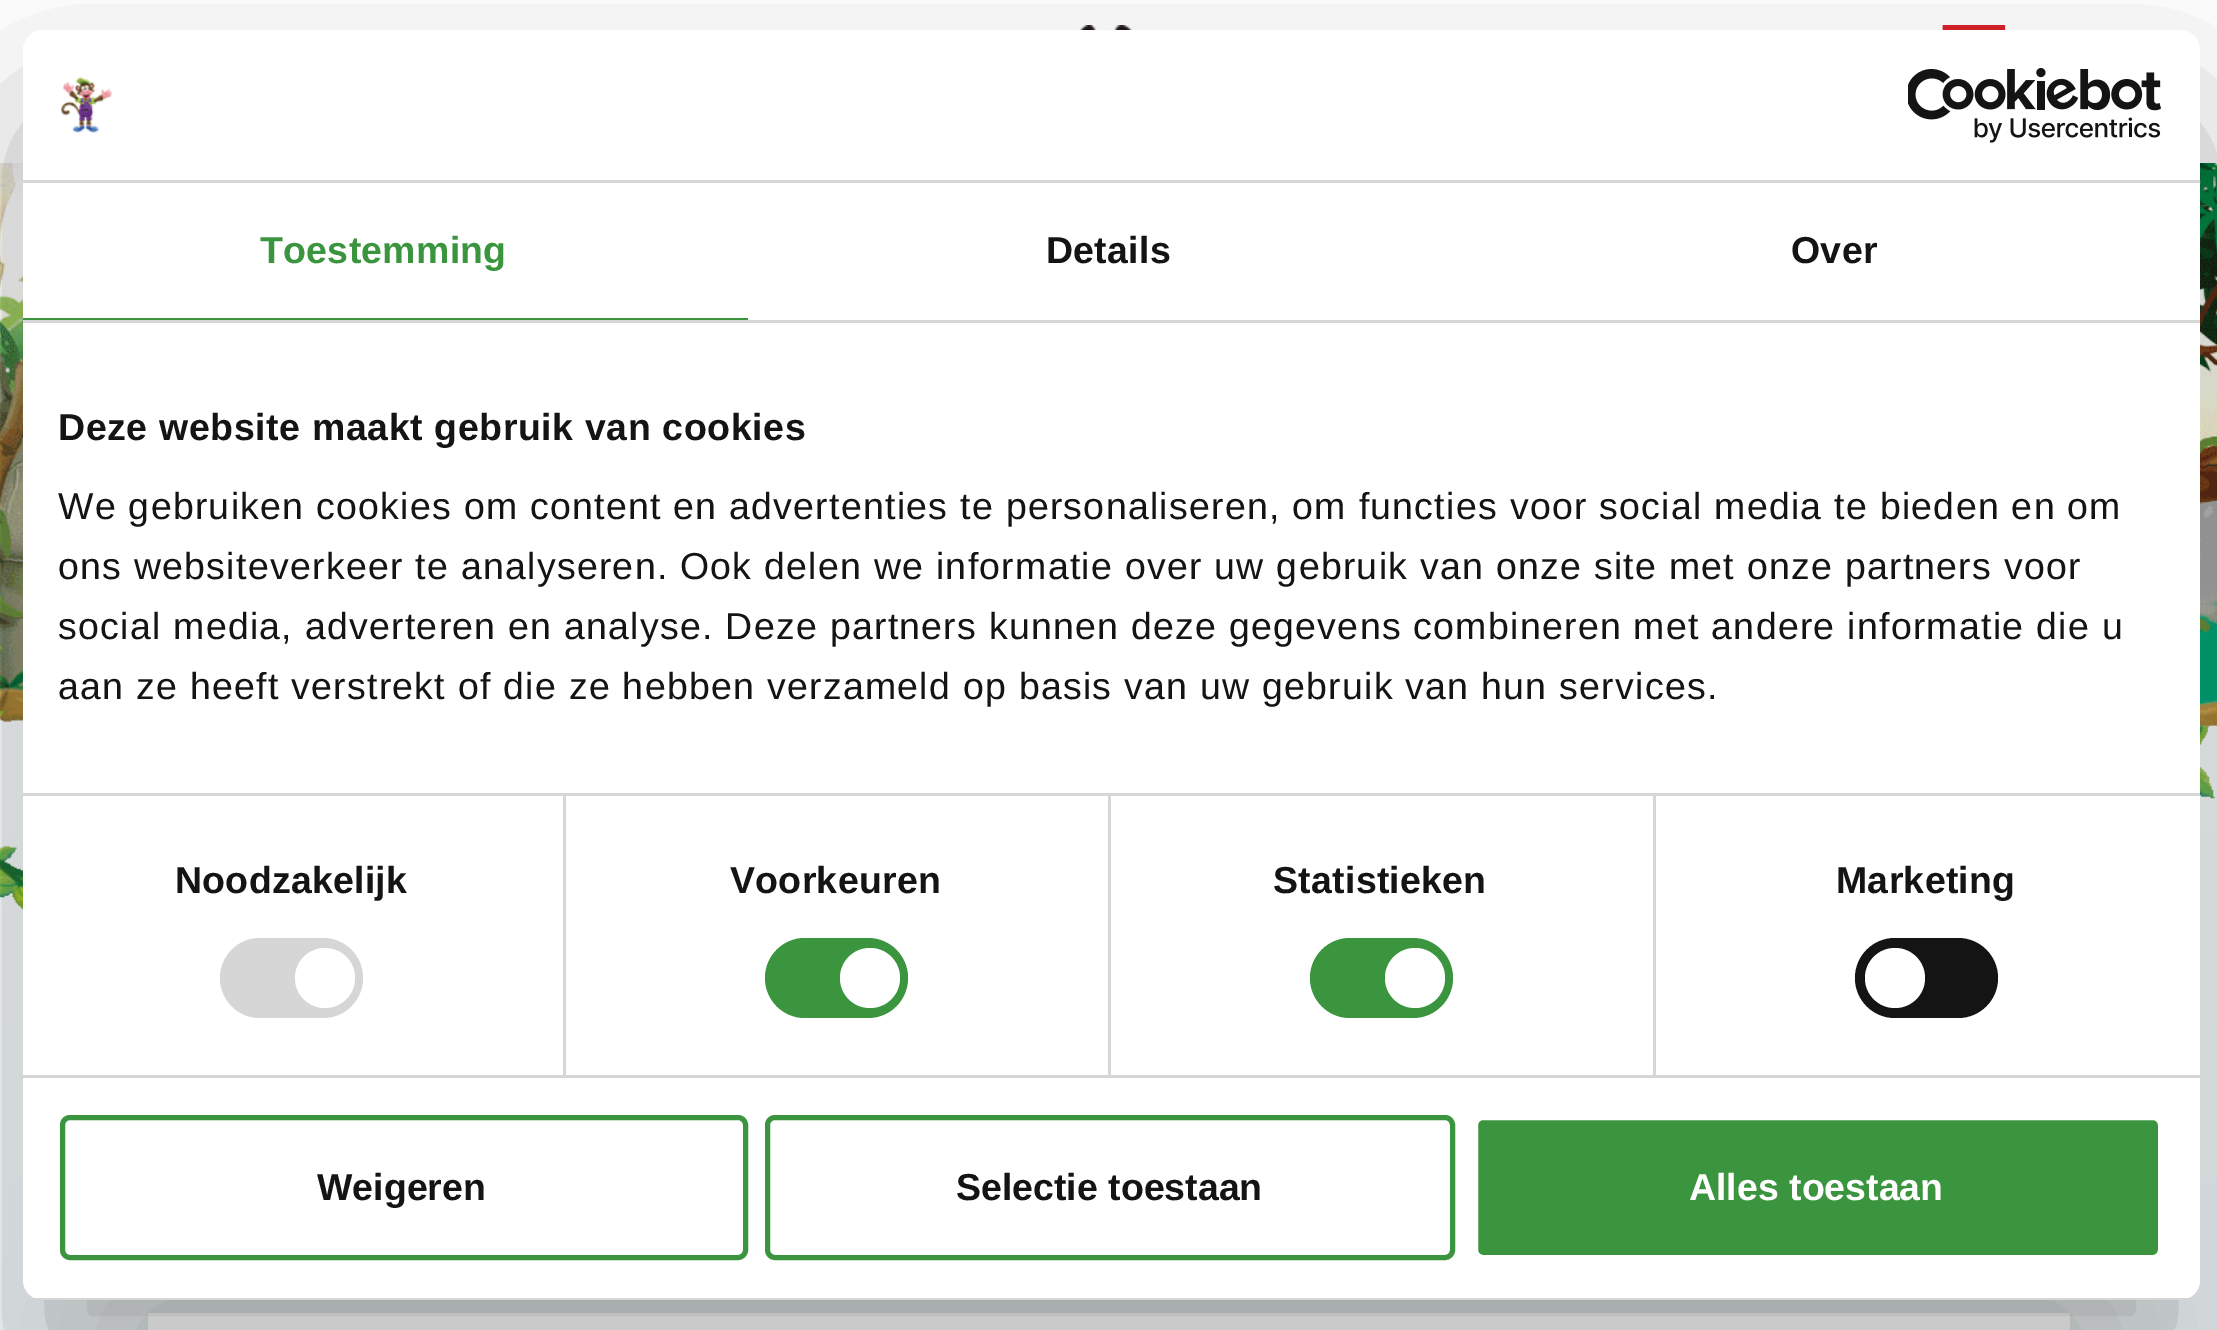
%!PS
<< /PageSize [2217 1330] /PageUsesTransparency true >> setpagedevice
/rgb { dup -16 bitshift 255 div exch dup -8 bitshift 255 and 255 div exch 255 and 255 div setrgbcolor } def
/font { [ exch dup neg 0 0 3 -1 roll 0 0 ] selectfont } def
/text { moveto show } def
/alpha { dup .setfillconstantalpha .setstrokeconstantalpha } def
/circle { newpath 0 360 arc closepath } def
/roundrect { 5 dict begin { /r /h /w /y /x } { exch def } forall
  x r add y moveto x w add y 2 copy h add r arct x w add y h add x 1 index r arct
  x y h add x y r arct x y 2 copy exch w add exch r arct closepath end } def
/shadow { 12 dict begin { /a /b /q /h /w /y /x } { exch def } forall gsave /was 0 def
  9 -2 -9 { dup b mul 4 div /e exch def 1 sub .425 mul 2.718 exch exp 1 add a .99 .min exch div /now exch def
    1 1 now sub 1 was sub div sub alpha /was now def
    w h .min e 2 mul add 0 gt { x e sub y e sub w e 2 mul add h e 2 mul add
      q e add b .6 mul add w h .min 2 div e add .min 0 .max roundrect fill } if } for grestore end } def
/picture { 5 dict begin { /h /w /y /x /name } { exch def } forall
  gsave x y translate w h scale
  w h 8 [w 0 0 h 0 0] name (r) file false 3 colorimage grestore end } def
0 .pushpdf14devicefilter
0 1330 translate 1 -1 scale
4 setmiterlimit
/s1 { /LiberationSans-Bold 37.5 font 16#141414 rgb } def
/s2 { /LiberationSans-Bold 37.5 font 16#FFFFFF rgb } def
16#FFFFFF rgb
0 0 2217 1330 rectfill
gsave 0 718 moveto 2217 718 lineto 2217 1330 lineto 0 1330 lineto closepath clip newpath
<< /ShadingType 2 /ColorSpace /DeviceRGB /Coords [1109 0 1109 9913] /Extend [true true] /Function << /FunctionType 3 /Domain [0 1] /Functions [<< /FunctionType 2 /Domain [0 1] /C0 [1 1 1] /C1 [0.937 0.98 0.992] /N 1 >> << /FunctionType 2 /Domain [0 1] /C0 [0.937 0.98 0.992] /C1 [0.937 0.988 1] /N 1 >> << /FunctionType 2 /Domain [0 1] /C0 [0.937 0.988 1] /C1 [1 1 1] /N 1 >> << /FunctionType 2 /Domain [0 1] /C0 [1 1 1] /C1 [1 0.965 0.878] /N 1 >> << /FunctionType 2 /Domain [0 1] /C0 [1 0.969 0.878] /C1 [1 0.949 0.871] /N 1 >> << /FunctionType 2 /Domain [0 1] /C0 [1 0.949 0.871] /C1 [1 1 1] /N 1 >>] /Bounds [0.28 0.66 0.73 0.88 0.91] /Encode [0 1 0 1 0 1 0 1 0 1 0 1] >> >> shfill grestore
(pic3.raw) 0 163 2217 747 picture
16#000000 rgb
0 13 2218 162 0 25 0.06 shadow
16#FFFFFF rgb
0 0 2217 163 rectfill
(pic1.raw) 1079 25 53 5 picture
(pic2.raw) 1942 25 64 5 picture
16#000000 rgb
148 1313 1922 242 0 75 0.16 shadow
16#FFFFFF rgb
148 1313 1922 17 rectfill
gsave
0 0 moveto 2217 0 lineto 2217 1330 lineto 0 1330 lineto closepath 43 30 moveto 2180 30 lineto 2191 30 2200 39 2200 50 curveto 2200 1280 lineto 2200 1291 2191 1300 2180 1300 curveto 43 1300 lineto 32 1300 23 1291 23 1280 curveto 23 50 lineto 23 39 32 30 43 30 curveto closepath eoclip newpath
16#000000 rgb
23 110 2177 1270 20 85 0.3 shadow
grestore
23 30 2177 1270 20 roundrect fill
16#D6D6D6 rgb
23 180 2177 3 rectfill
(pic4.raw) 61 77 52 56 picture
(pic5.raw) 1908 68 253 75 picture
23 320 2177 3 rectfill
16#3B953E rgb
23 318 725 2 rectfill
/LiberationSans-Bold 37.5 font
260 263 moveto 0.25 0 (Toestemming) ashow
16#141414 rgb
1046 263 moveto 0.25 0 (Details) ashow
1791 263 moveto 0.25 0 (Over) ashow
16#D6D6D6 rgb
563 795 3 280 rectfill
1108 795 3 280 rectfill
1653 795 3 280 rectfill
23 793 2177 3 rectfill
16#141414 rgb
58 440 moveto 0.6 0 (Deze website maakt gebruik van cookies) ashow
/LiberationSans-Regular 37.5 font
58 519 moveto 1.25 0 (We gebruiken cookies om content en advertenties te personaliseren, om functies voor social media te bieden en om) ashow
58 579 moveto 1.25 0 (ons websiteverkeer te analyseren. Ook delen we informatie over uw gebruik van onze site met onze partners voor) ashow
58 639 moveto 1.25 0 (social media, adverteren en analyse. Deze partners kunnen deze gegevens combineren met andere informatie die u) ashow
58 699 moveto 1.25 0 (aan ze heeft verstrekt of die ze hebben verzameld op basis van uw gebruik van hun services.) ashow
16#D6D6D6 rgb
23 1075 2177 3 rectfill
/LiberationSans-Bold 37.5 font
16#141414 rgb
175 893 moveto 0.25 0 (Noodzakelijk) ashow
16#D6D6D6 rgb
220 938 143 80 40 roundrect fill
16#FFFFFF rgb
325 978 30 circle fill
16#141414 rgb
730 893 moveto 0.25 0 (Voorkeuren) ashow
16#3B953E rgb
765 938 143 80 40 roundrect fill
16#FFFFFF rgb
870 978 30 circle fill
16#141414 rgb
1273 893 moveto 0.25 0 (Statistieken) ashow
16#3B953E rgb
1310 938 143 80 40 roundrect fill
16#FFFFFF rgb
1415 978 30 circle fill
16#141414 rgb
1836 893 moveto 0.25 0 (Marketing) ashow
1855 938 143 80 40 roundrect fill
16#FFFFFF rgb
1895 978 30 circle fill
gsave
23 30 2177 1270 20 roundrect clip newpath
16#D6D6D6 rgb
34 1298 2155 2 rectfill
grestore
16#3B953E rgb
5 setlinewidth
62.5 1117.5 683 140 7.5 roundrect stroke
s1
(Weigeren) 317 1200 text
16#3B953E rgb
767.5 1117.5 685 140 7.5 roundrect stroke
s1
(Selectie toestaan) 956 1200 text
16#3B953E rgb
1475.5 1117.5 685 140 7.5 roundrect gsave fill grestore
16#FFFFFF rgb
stroke
(Alles toestaan) 1689 1200 text
.poppdf14devicefilter showpage
